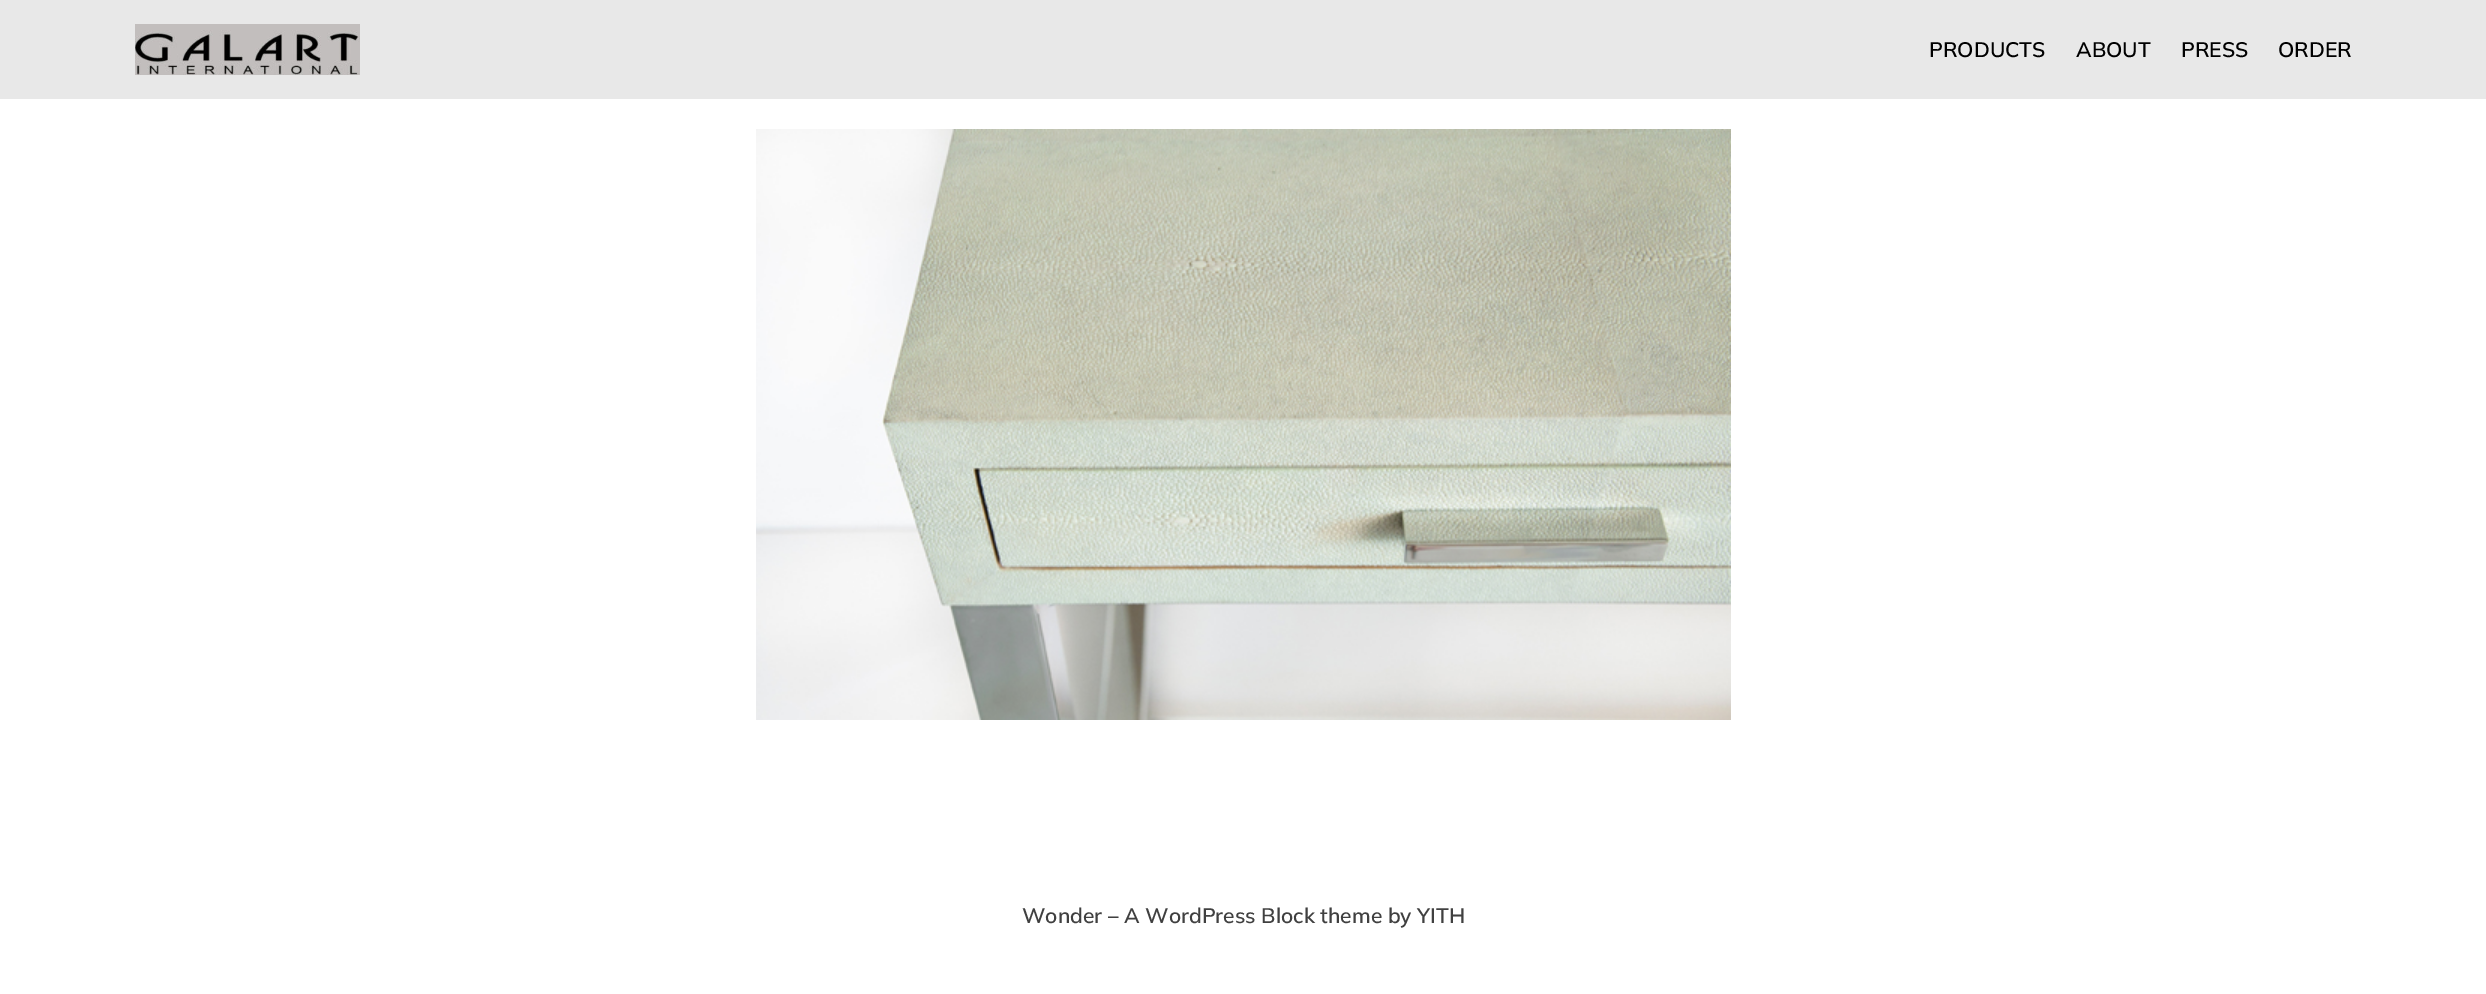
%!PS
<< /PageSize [2486 994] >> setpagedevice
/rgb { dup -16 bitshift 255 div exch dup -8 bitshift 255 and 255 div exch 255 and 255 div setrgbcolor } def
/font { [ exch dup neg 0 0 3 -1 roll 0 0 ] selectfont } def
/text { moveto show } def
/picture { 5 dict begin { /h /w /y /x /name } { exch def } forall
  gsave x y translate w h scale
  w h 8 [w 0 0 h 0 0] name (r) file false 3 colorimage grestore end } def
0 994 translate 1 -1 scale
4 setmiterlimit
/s1 { /Mulish-SemiBold 21 font 16#000000 rgb } def
/s2 { /Mulish-SemiBold 21 font 16#404040 rgb } def
16#FFFFFF rgb
0 0 2486 994 rectfill
16#E8E8E8 rgb
0 0 2486 99 rectfill
(pic1.raw) 135 24 225 51 picture
s1
(PRODUCTS) 1929 57 text
(ABOUT) 2076 57 text
(PRESS) 2181 57 text
(ORDER) 2278 57 text
(pic2.raw) 756 129 975 591 picture
s2
(Wonder – A WordPress Block theme by YITH) 1022 923 text
showpage
